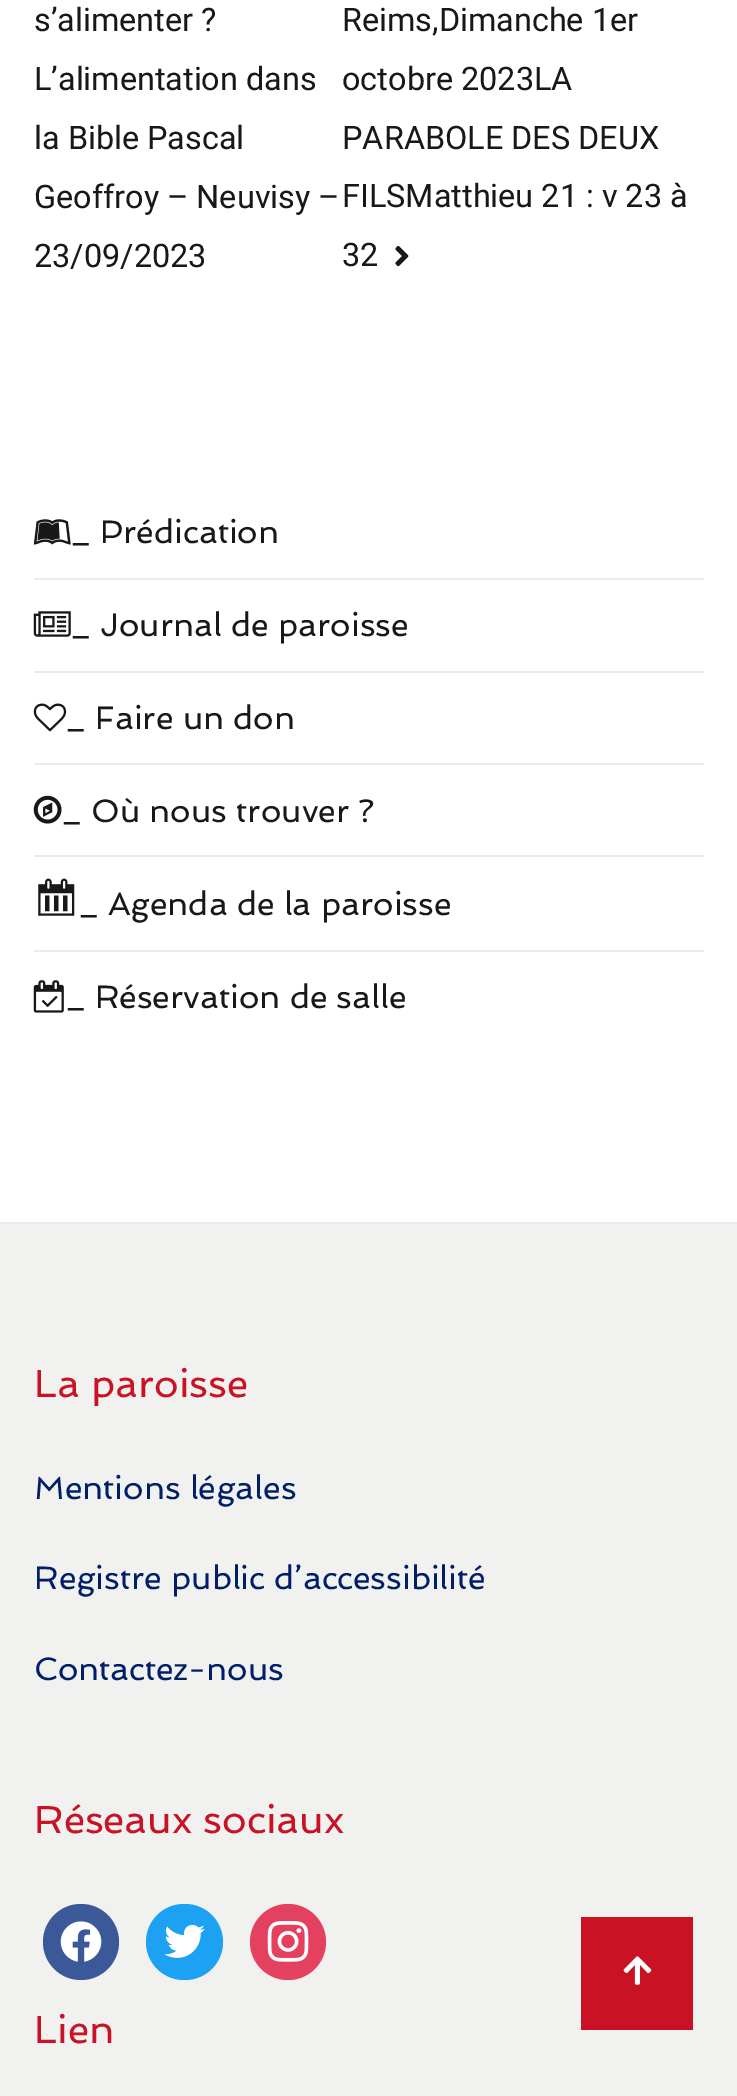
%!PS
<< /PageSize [737 2096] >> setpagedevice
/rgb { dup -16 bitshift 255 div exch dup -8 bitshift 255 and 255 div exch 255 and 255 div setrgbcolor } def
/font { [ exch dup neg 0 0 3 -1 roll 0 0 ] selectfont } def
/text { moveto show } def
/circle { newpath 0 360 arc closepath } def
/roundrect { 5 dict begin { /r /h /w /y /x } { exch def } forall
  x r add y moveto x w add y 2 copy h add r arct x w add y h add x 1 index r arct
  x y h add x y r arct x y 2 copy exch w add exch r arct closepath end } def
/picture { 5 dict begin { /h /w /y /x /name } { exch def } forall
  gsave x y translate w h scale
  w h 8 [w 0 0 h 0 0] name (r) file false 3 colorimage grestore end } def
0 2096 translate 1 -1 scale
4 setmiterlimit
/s1 { /Roboto-Regular 32.4 font 16#16181A rgb } def
/s2 { /Spinnaker-Regular 32.4 font 16#16181A rgb } def
/s3 { /Spinnaker-Regular 39 font 16#C91224 rgb } def
/s4 { /Spinnaker-Regular 32.4 font 16#001F68 rgb } def
16#FFFFFF rgb
0 0 737 2096 rectfill
s1
(s’alimenter ?) 34 31 text
(L’alimentation dans) 34 90 text
(la Bible Pascal) 34 149 text
(Geoffroy – Neuvisy –) 34 208 text
(23/09/2023) 34 267 text
(Reims,Dimanche 1er) 342 31 text
(octobre 2023LA) 342 90 text
(PARABOLE DES DEUX) 342 149 text
(FILSMatthieu 21 : v 23 à) 342 207 text
(32) 342 266 text
(pic1.raw) 395 245 14 22 picture
16#E9ECEF rgb
34 578 670 2 rectfill
(pic2.raw) 33 519 38 26 picture
s2
(_ Prédication) 71 543 text
16#E9ECEF rgb
34 671 670 2 rectfill
(pic3.raw) 33 611 38 26 picture
s2
(_ Journal de paroisse) 71 636 text
16#E9ECEF rgb
34 763 670 2 rectfill
(pic4.raw) 33 703 34 29 picture
s2
(_ Faire un don) 66 729 text
16#E9ECEF rgb
34 855 670 2 rectfill
(pic5.raw) 33 795 29 29 picture
s2
(_ Où nous trouver ?) 62 822 text
16#E9ECEF rgb
34 950 670 2 rectfill
(pic6.raw) 38 878 37 38 picture
s2
(_ Agenda de la paroisse) 79 915 text
(pic7.raw) 33 980 31 33 picture
(_ Réservation de salle) 66 1008 text
16#F1F1F0 rgb
0 1224 737 872 rectfill
16#E9ECEF rgb
0 1222 737 2 rectfill
s3
(La paroisse) 34 1397 text
s4
(Mentions légales) 34 1499 text
(Registre public d’accessibilité) 34 1589 text
(Contactez-nous) 34 1680 text
s3
(Réseaux sociaux) 34 1833 text
16#3B5998 rgb
81 1942 38 circle fill
(pic8.raw) 60 1921 42 41 picture
16#1DA1F2 rgb
146 1904 77 76 38 roundrect fill
(pic9.raw) 164 1924 41 34 picture
16#E4405F rgb
288 1942 38 circle fill
(pic10.raw) 267 1921 42 41 picture
s3
(Lien) 34 2043 text
581 1917 112 113 rectfill
(pic11.raw) 623 1956 29 29 picture
showpage
